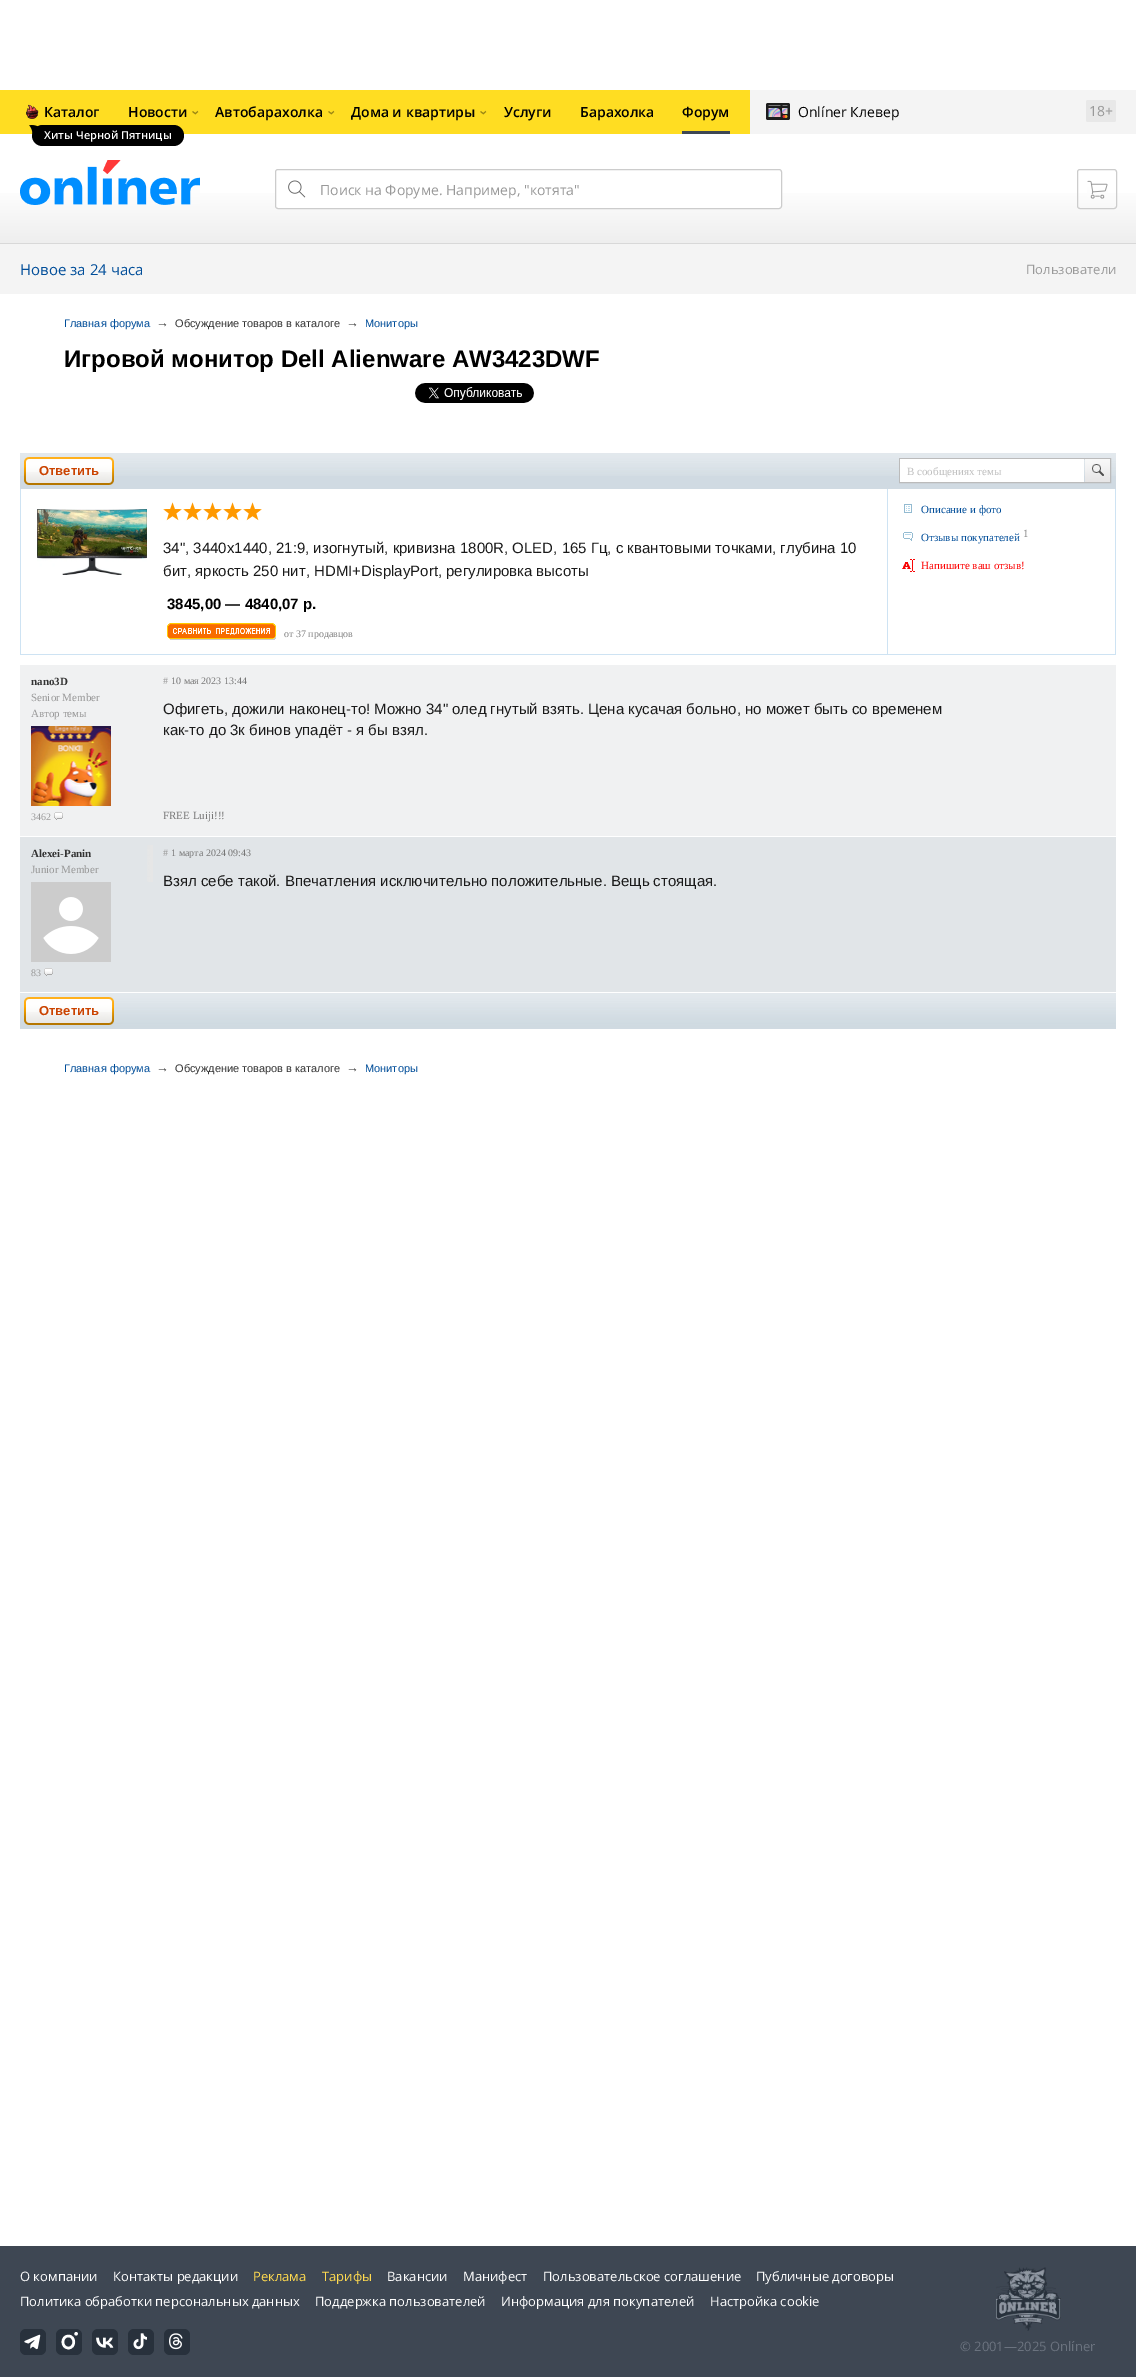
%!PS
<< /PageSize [1136 2377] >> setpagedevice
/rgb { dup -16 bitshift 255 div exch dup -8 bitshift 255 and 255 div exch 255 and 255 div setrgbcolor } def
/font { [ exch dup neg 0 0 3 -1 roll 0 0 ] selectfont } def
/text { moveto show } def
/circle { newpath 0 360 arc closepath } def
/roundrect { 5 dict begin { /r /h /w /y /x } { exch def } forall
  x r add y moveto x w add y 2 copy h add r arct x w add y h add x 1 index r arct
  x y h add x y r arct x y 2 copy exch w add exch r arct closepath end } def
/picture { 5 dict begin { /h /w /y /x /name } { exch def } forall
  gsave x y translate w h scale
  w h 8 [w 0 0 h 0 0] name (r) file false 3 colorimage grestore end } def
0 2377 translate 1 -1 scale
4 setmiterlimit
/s1 { /OpenSans-SemiBold 14 font 16#000000 rgb } def
/s2 { /OpenSans-SemiBold 11 font 16#FFFFFF rgb } def
/s3 { /OpenSans-Regular 14 font 16#000000 rgb } def
/s4 { /OpenSans-Regular 14 font 16#999999 rgb } def
/s5 { /OpenSans-Regular 15 font 16#004D99 rgb } def
/s6 { /OpenSans-Regular 13 font 16#999999 rgb } def
/s7 { /LiberationSans-Regular 11 font 16#004D99 rgb } def
/s8 { /LiberationSans-Regular 13 font 16#333333 rgb } def
/s9 { /LiberationSans-Regular 11 font 16#333333 rgb } def
/s10 { /LiberationSans-Bold 24 font 16#000000 rgb } def
/s11 { /LiberationSans-Bold 13 font 16#CB4300 rgb } def
/s12 { /LiberationSerif-Regular 11 font 16#BFBFBF rgb } def
/s13 { /LiberationSans-Regular 15 font 16#1A1A1A rgb } def
/s14 { /LiberationSans-Bold 15 font 16#000000 rgb } def
/s15 { /LiberationSerif-Regular 10 font 16#808080 rgb } def
/s16 { /LiberationSerif-Regular 11 font 16#004D99 rgb } def
/s17 { /LiberationSerif-Regular 11 font 16#808080 rgb } def
/s18 { /LiberationSerif-Regular 11 font 16#FD0000 rgb } def
/s19 { /LiberationSerif-Bold 11 font 16#333333 rgb } def
/s20 { /LiberationSerif-Regular 11 font 16#999999 rgb } def
/s21 { /LiberationSerif-Regular 10 font 16#999999 rgb } def
/s22 { /LiberationSerif-Regular 10 font 16#777777 rgb } def
/s23 { /LiberationSerif-Regular 11 font 16#777777 rgb } def
/s24 { /OpenSans-Regular 13 font 16#FFFFFF rgb } def
/s25 { /OpenSans-Regular 13 font 16#FFDA50 rgb } def
/s26 { /OpenSans-Regular 13 font 16#6B737F rgb } def
16#FFFFFF rgb
0 0 1136 2377 rectfill
gsave 0 193 moveto 1136 193 lineto 1136 243 lineto 0 243 lineto closepath clip newpath
<< /ShadingType 2 /ColorSpace /DeviceRGB /Coords [568 90 568 280] /Extend [true true] /Function << /FunctionType 3 /Domain [0 1] /Functions [<< /FunctionType 2 /Domain [0 1] /C0 [1 1 1] /C1 [1 1 1] /N 1 >> << /FunctionType 2 /Domain [0 1] /C0 [1 1 1] /C1 [0.89 0.89 0.89] /N 1 >>] /Bounds [0.5] /Encode [0 1 0 1] >> >> shfill grestore
16#F4F4F4 rgb
750 90 386 44 rectfill
16#FFDD22 rgb
0 90 750 44 rectfill
s1
(Каталог) 44 117 text
(pic1.raw) 26 104 13 15 picture
32 125 152 21 10.5 roundrect fill
(pic2.raw) 29 125 13 10 picture
s2
(Хиты Черной Пятницы) 44 139 text
s1
(Автобарахолка) 215 117 text
16#998514 rgb
gsave 335 115 translate -90 rotate 0 0 moveto (‹) show grestore
s1
(Форум) 682 117 text
16#3E4753 rgb
682 131 48 3 rectfill
s1
(Новости) 128 117 text
16#998514 rgb
gsave 199 115 translate -90 rotate 0 0 moveto (‹) show grestore
s1
(Дома и квартиры) 351 117 text
16#998514 rgb
gsave 487 115 translate -90 rotate 0 0 moveto (‹) show grestore
s1
(Услуги) 504 117 text
(Барахолка) 580 117 text
(pic3.raw) 766 103 24 17 picture
s3
(Onlíner Клевер) 798 117 text
16#E8E8E8 rgb
1086 100 30 22 2 roundrect fill
s4
(18+) 1089 116 text
(pic4.raw) 20 160 180 45 picture
16#FFFFFF rgb
275 169 507 40 3 roundrect fill
(pic5.raw) 288 180 18 18 picture
16#CCCCCC rgb
275.5 169.5 506 39 2.5 roundrect stroke
s4
(Поиск на Форуме. Например, "котята") 320 195 text
16#CCCCCC rgb
1077.5 169.5 39 39 2.5 roundrect stroke
(pic6.raw) 1087 180 21 19 picture
16#D8D8D8 rgb
0 243 1136 1 rectfill
16#F4F4F4 rgb
0 244 1136 50 rectfill
s5
(Новое за 24 часа) 20 275 text
s6
(Пользователи) 1026 274 text
s7
(Главная форума) 64 327 text
s8
(→) 156 327 text
s9
(Обсуждение товаров в каталоге) 175 327 text
s8
(→) 346 327 text
s7
(Мониторы) 365 327 text
s10
(Игровой монитор Dell Alienware AW3423DWF) 64 367 text
(pic7.raw) 415 383 119 20 picture
16#D0DAE2 rgb
20 476 1096 13 rectfill
(pic8.raw) 20 453 1096 23 picture
(pic9.raw) 24 457 7 28 picture
(pic10.raw) 31 457 83 28 picture
s11
(Ответить) 39 475 text
16#BBBBBB rgb
899.5 458.5 211 24 rectstroke
16#FFFFFF rgb
900 459 184 23 rectfill
s12
(В сообщениях темы) 907 475 text
(pic11.raw) 1085 459 25 23 picture
16#CEE3F3 rgb
1115 489 1 166 rectfill
20 654 1096 1 rectfill
20 489 1 166 rectfill
(pic12.raw) 37 509 110 66 picture
887 489 1 165 rectfill
(pic13.raw) 163 502 99 19 picture
s13
(34", 3440x1440, 21:9, изогнутый, кривизна 1800R, OLED, 165 Гц, c квантовыми точками, глубина 10) 163 553 text
(бит, яркость 250 нит, HDMI+DisplayPort, регулировка высоты) 163 576 text
s14
(3845,00 — 4840,07 р.) 167 609 text
(pic14.raw) 167 623 109 17 picture
s15
(от 37 продавцов) 284 637 text
(pic15.raw) 904 504 8 9 picture
s16
(Описание и фото) 921 513 text
(pic16.raw) 903 532 10 9 picture
(Отзывы покупателей) 921 541 text
s17
(1) 1023 537 text
(pic17.raw) 902 559 13 13 picture
s18
(Напишите ваш отзыв!) 921 569 text
16#F0F1F2 rgb
20 665 1096 171 rectfill
s19
(nano3D) 31 685 text
s20
(Senior Member) 31 701 text
(Автор темы) 31 717 text
(pic18.raw) 31 726 80 80 picture
s21
(3462) 31 820 text
(pic19.raw) 54 812 9 8 picture
(#) 163 684 text
s22
(10 мая 2023 13:44) 171 684 text
s13
(Офигеть, дожили наконец-то! Можно 34" олед гнутый взять. Цена кусачая больно, но может быть со временем) 163 714 text
(как-то до 3к бинов упадёт - я бы взял.) 163 735 text
s23
(FREE Luiji!!!) 163 819 text
16#E1E5E8 rgb
20 837 1096 155 rectfill
s19
(Alexei-Panin) 31 857 text
(pic20.raw) 147 845 6 37 picture
s20
(Junior Member) 31 873 text
(pic21.raw) 31 882 80 80 picture
s21
(83) 31 976 text
(pic22.raw) 44 968 9 8 picture
(#) 163 856 text
s22
(1 марта 2024 09:43) 171 856 text
s13
(Взял себе такой. Впечатления исключительно положительные. Вещь стоящая.) 163 886 text
(pic23.raw) 20 993 1096 36 picture
(pic24.raw) 24 997 7 28 picture
(pic25.raw) 31 997 83 28 picture
s11
(Ответить) 39 1015 text
s7
(Главная форума) 64 1072 text
s8
(→) 156 1072 text
s9
(Обсуждение товаров в каталоге) 175 1072 text
s8
(→) 346 1072 text
s7
(Мониторы) 365 1072 text
16#3E4753 rgb
0 2246 1136 131 rectfill
s24
(О компании) 20 2281 text
(Контакты редакции) 113 2281 text
s25
(Реклама) 253 2281 text
(Тарифы) 322 2281 text
s24
(Вакансии) 387 2281 text
(Манифест) 463 2281 text
(Пользовательское соглашение) 543 2281 text
(Публичные договоры) 756 2281 text
(Политика обработки персональных данных) 20 2306 text
(Поддержка пользователей) 315 2306 text
(Информация для покупателей) 501 2306 text
(Настройка cookie) 710 2306 text
16#28313C rgb
20 2329 26 26 6 roundrect fill
(pic26.raw) 24 2334 17 16 picture
56 2329 26 26 6 roundrect fill
16#FFFFFF rgb
2.5 setlinewidth
68.5 2336 moveto 75.5 2336 75.5 2348 68.5 2348 curveto 61 2348 61 2336 68.5 2336 curveto closepath stroke
76.1 2333.8 1.7 circle fill
16#28313C rgb
92 2329 26 26 6 roundrect fill
(pic27.raw) 96 2337 18 11 picture
128 2329 26 26 6 roundrect fill
(pic28.raw) 133 2333 14 17 picture
164 2329 26 26 6 roundrect fill
(pic29.raw) 169 2333 14 17 picture
(pic30.raw) 996 2267 65 64 picture
s26
(© 2001—2025 Onlíner) 960 2351 text
showpage
